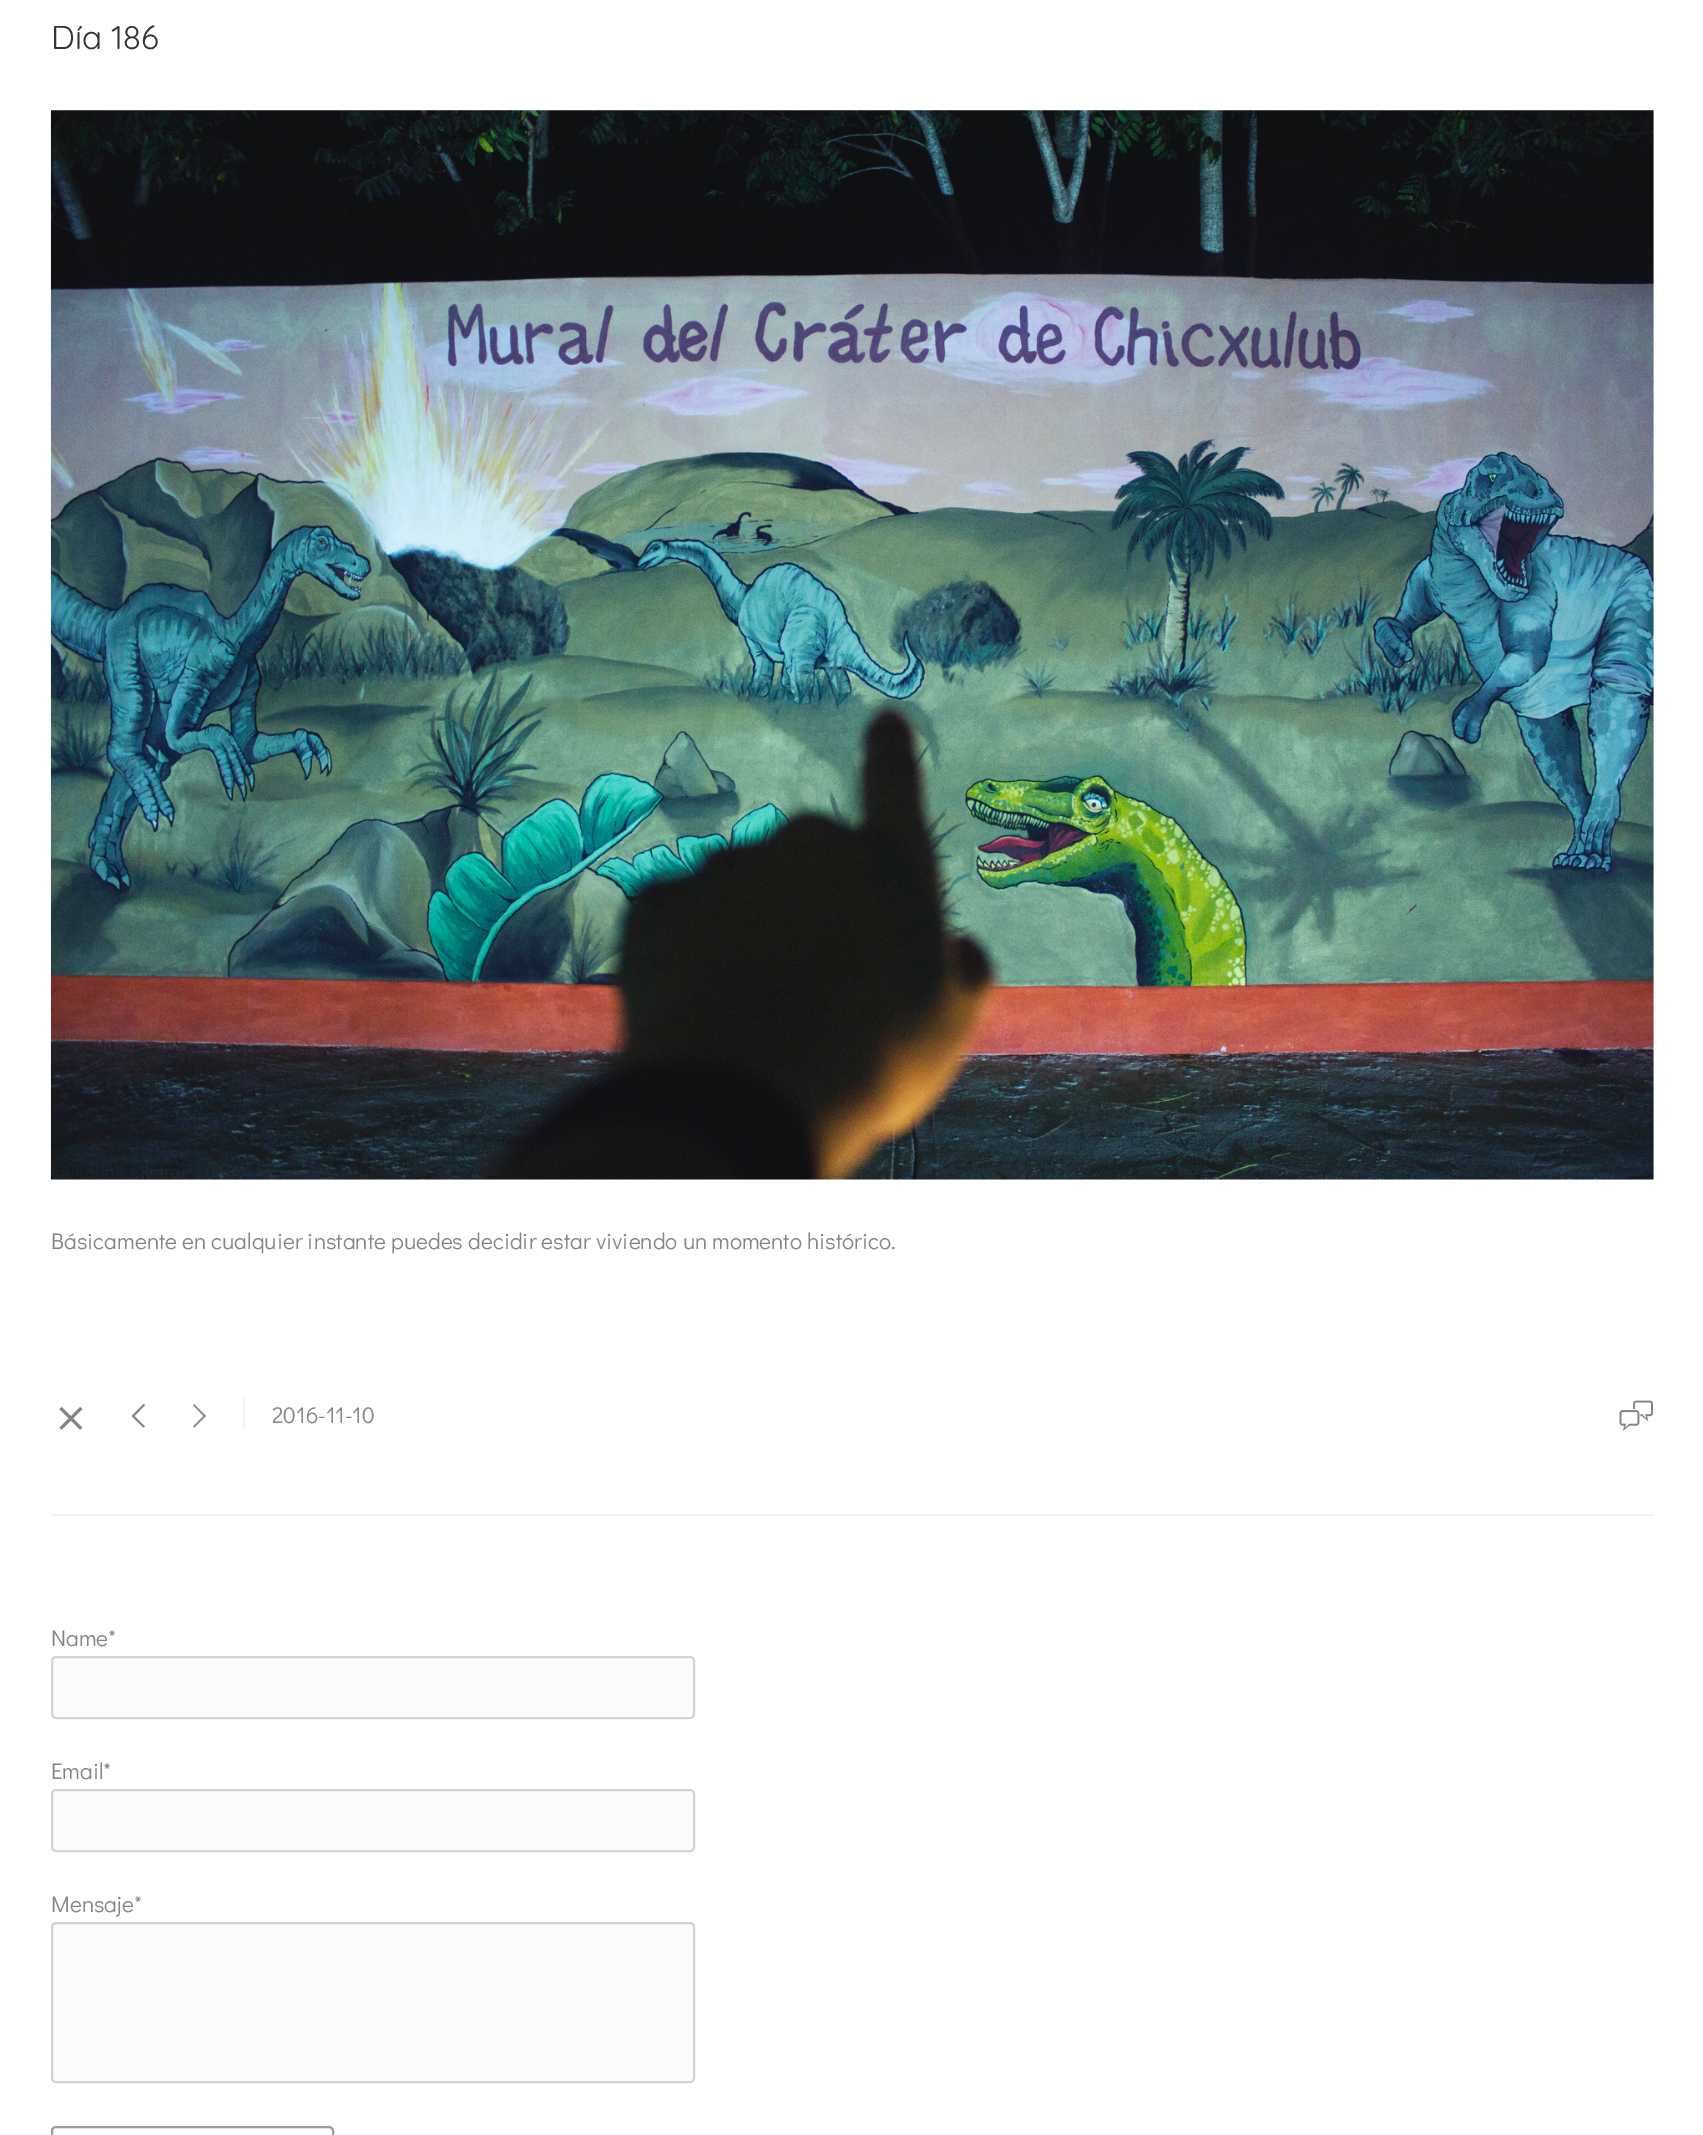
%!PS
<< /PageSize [1703 2135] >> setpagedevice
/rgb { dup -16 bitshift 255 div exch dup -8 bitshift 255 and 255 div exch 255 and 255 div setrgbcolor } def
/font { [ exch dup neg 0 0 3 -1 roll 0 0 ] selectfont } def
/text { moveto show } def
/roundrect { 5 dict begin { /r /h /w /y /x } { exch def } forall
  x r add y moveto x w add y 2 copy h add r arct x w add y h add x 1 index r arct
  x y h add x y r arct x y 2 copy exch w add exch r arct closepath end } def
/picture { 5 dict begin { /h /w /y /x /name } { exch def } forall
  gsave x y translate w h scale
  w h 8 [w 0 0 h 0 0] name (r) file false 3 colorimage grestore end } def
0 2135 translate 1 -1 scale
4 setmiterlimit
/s1 { /Quicksand-Light 33 font 16#333333 rgb } def
/s2 { /DidactGothic-Regular 22.75 font 16#858585 rgb } def
16#FFFFFF rgb
0 0 1703 2135 rectfill
s1
(Día 186) 51 49 text
(pic1.raw) 50 110 1604 1070 picture
s2
(Básicamente en cualquier instante puedes decidir estar viviendo un momento histórico.) 51 1249 text
(pic2.raw) 59 1406 24 24 picture
143.5 1427.5 moveto 145 1426.5 lineto 134.5 1416 lineto 145 1405 lineto 143.5 1404 lineto 131.5 1416 lineto closepath fill
206 1416 moveto 194 1404 lineto 193 1405 lineto 203.5 1416 lineto 193 1426.5 lineto 194 1427.5 lineto closepath fill
16#F3F3F3 rgb
243 1398 2 30 rectfill
s2
(2016-11-10) 272 1423 text
(pic3.raw) 1619 1400 34 31 picture
16#F3F3F3 rgb
51 1514 1603 2 rectfill
s2
(Name*) 51 1646 text
16#FBFBFB rgb
52 1657 642 61 4 roundrect gsave fill grestore
16#D3D3D3 rgb
2 setlinewidth
stroke
s2
(Email*) 51 1779 text
16#FBFBFB rgb
52 1790 642 61 4 roundrect gsave fill grestore
16#D3D3D3 rgb
stroke
s2
(Mensaje*) 51 1912 text
16#FBFBFB rgb
52 1923 642 159 4 roundrect gsave fill grestore
16#D3D3D3 rgb
stroke
16#9D9D9D rgb
52 2127 281 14 4 roundrect stroke
showpage
